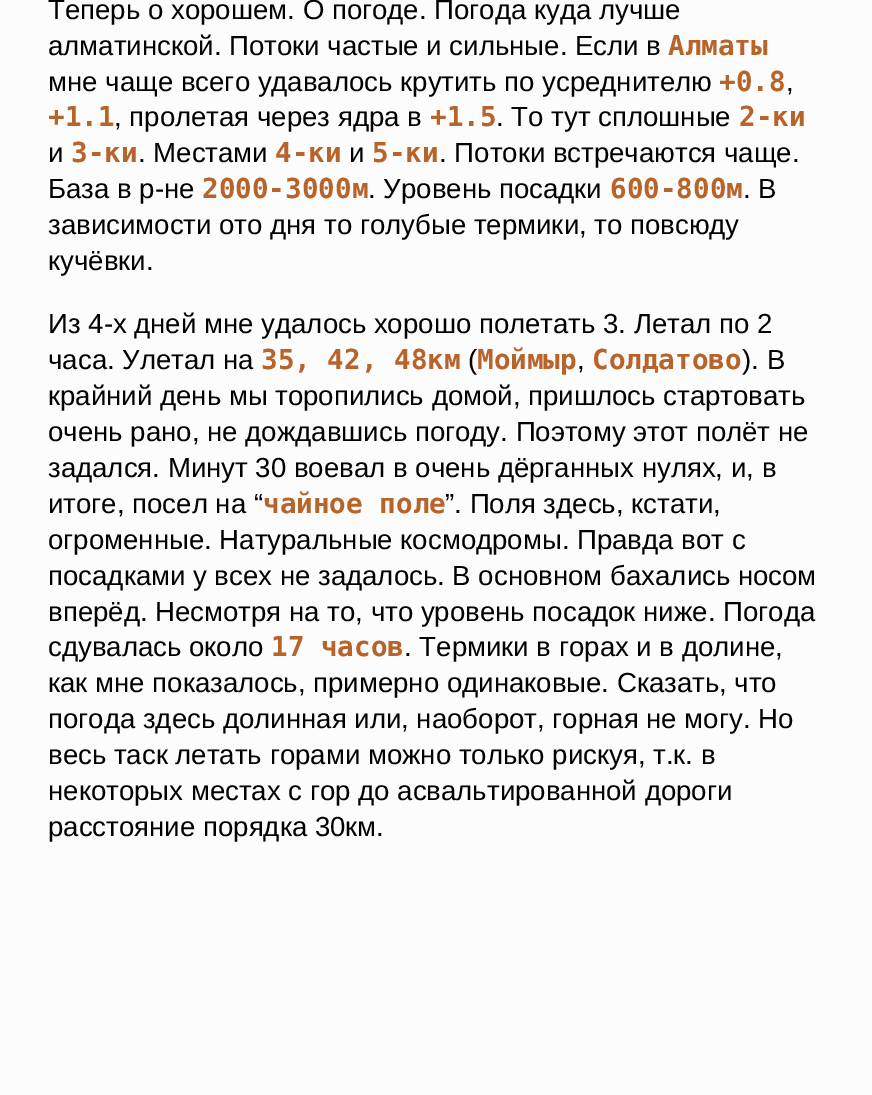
%!PS
<< /PageSize [872 1095] >> setpagedevice
/rgb { dup -16 bitshift 255 div exch dup -8 bitshift 255 and 255 div exch 255 and 255 div setrgbcolor } def
/font { [ exch dup neg 0 0 3 -1 roll 0 0 ] selectfont } def
/text { moveto show } def
0 1095 translate 1 -1 scale
4 setmiterlimit
/s1 { /LiberationSans-Regular 27.6 font 16#000000 rgb } def
/s2 { /DejaVuSansMono-Bold 27.6 font 16#B8632A rgb } def
16#FCFCFD rgb
0 0 872 1095 rectfill
s1
(Теперь о хорошем. О погоде. Погода куда лучше) 48 19 text
(алматинской. Потоки частые и сильные. Если в) 48 55 text
s2
(Алматы) 668 55 text
s1
(мне чаще всего удавалось крутить по усреднителю) 48 91 text
s2
(+0.8) 719 91 text
s1
(,) 786 91 text
s2
(+1.1) 48 126 text
s1
(, пролетая через ядра в) 114 126 text
s2
(+1.5) 430 126 text
s1
(. То тут сплошные) 496 126 text
s2
(2-ки) 739 126 text
s1
(и) 48 162 text
s2
(3-ки) 71 162 text
s1
(. Местами) 138 162 text
s2
(4-ки) 275 162 text
s1
(и) 349 162 text
s2
(5-ки) 372 162 text
s1
(. Потоки встречаются чаще.) 439 162 text
(База в р-не) 48 198 text
s2
(2000-3000м) 202 198 text
s1
(. Уровень посадки) 368 198 text
s2
(600-800м) 610 198 text
s1
(. В) 743 198 text
(зависимости ото дня то голубые термики, то повсюду) 48 234 text
(кучёвки.) 48 270 text
(Из 4-х дней мне удалось хорошо полетать 3. Летал по 2) 48 333 text
s2
(35, 42, 48км Моймыр) 261 369 text
(Солдатово) 592 369 text
s1
(часа. Улетал на) 48 369 text
(\() 468 369 text
(,) 577 369 text
(\). В) 742 369 text
(крайний день мы торопились домой, пришлось стартовать) 48 405 text
(очень рано, не дождавшись погоду. Поэтому этот полёт не) 48 441 text
(задался. Минут 30 воевал в очень дёрганных нулях, и, в) 48 477 text
(итоге, посел на “) 48 513 text
s2
(чайное поле) 263 513 text
s1
(”. Поля здесь, кстати,) 445 513 text
(огроменные. Натуральные космодромы. Правда вот с) 48 549 text
(посадками у всех не задалось. В основном бахались носом) 48 585 text
(вперёд. Несмотря на то, что уровень посадок ниже. Погода) 48 621 text
(сдувалась около) 48 656 text
s2
(17 часов) 271 656 text
s1
(. Термики в горах и в долине,) 404 656 text
(как мне показалось, примерно одинаковые. Сказать, что) 48 692 text
(погода здесь долинная или, наоборот, горная не могу. Но) 48 728 text
(весь таск летать горами можно только рискуя, т.к. в) 48 764 text
(некоторых местах с гор до асвальтированной дороги) 48 800 text
(расстояние порядка 30км.) 48 836 text
showpage
